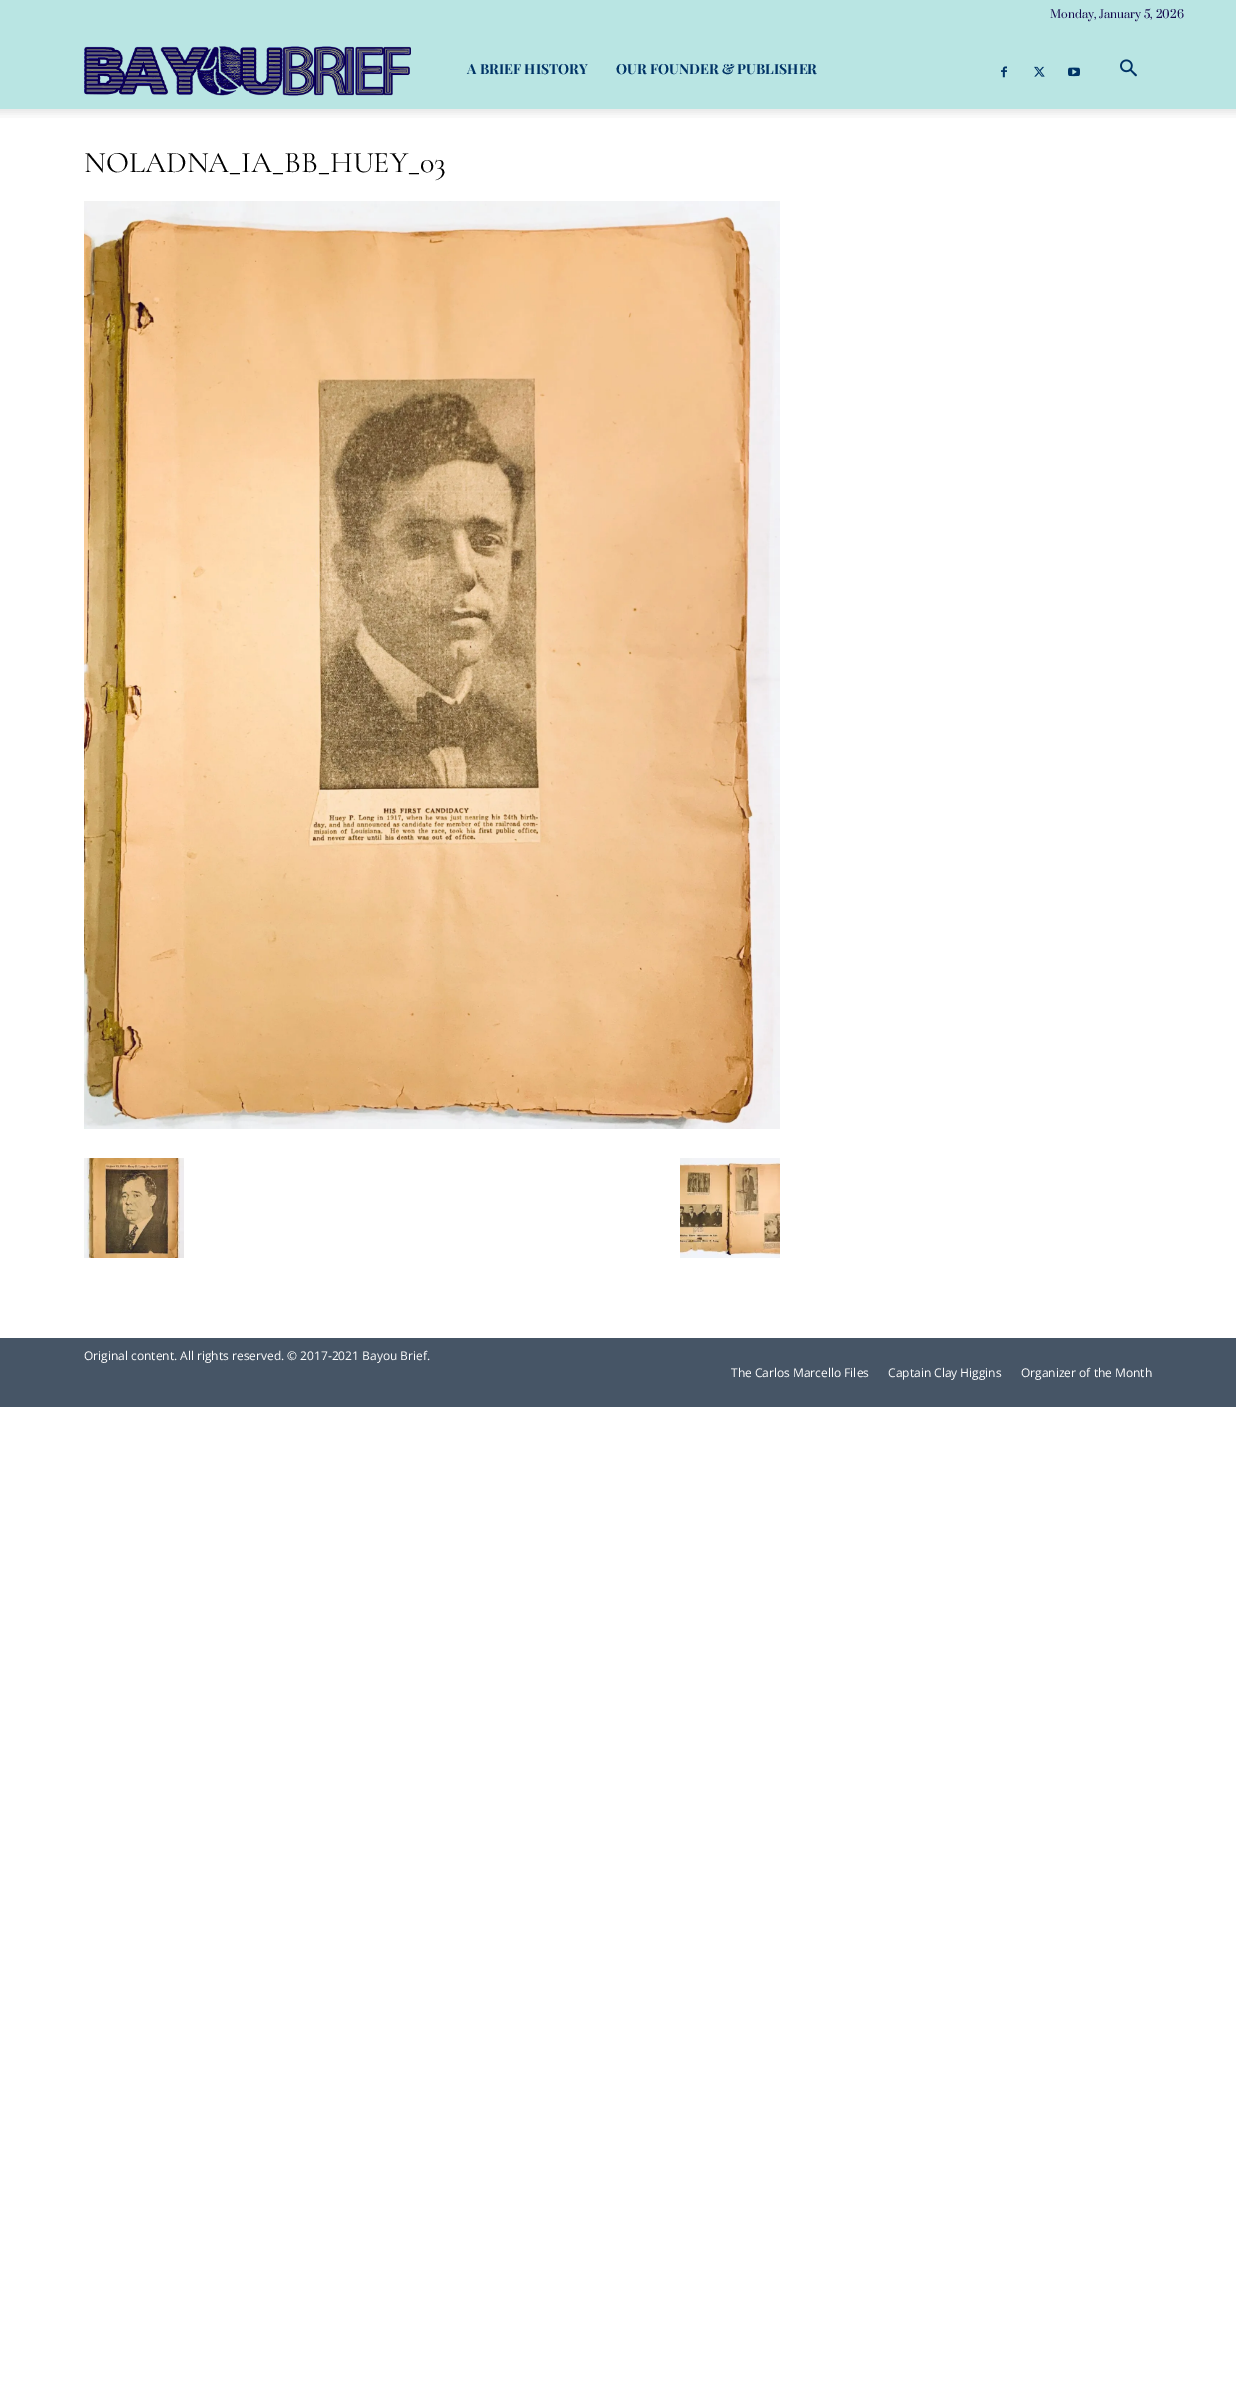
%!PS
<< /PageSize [1236 2397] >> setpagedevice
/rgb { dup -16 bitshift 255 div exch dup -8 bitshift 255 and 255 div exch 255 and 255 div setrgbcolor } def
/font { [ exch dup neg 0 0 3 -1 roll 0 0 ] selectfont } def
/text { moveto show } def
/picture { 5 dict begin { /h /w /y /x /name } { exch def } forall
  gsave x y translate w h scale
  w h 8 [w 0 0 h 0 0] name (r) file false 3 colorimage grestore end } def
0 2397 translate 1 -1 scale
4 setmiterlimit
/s1 { /Prata-Regular 11 font 16#170B4F rgb } def
/s2 { /PlayfairDisplay-Bold 14 font 16#003366 rgb } def
/s3 { /CormorantGaramond-Regular 30 font 16#000000 rgb } def
/s4 { /OpenSans-Regular 12 font 16#FFFFFF rgb } def
16#FFFFFF rgb
0 0 1236 2397 rectfill
16#B9E5E3 rgb
0 0 1236 109 rectfill
s1
(Monday, January 5, 2026) 1050 18 text
(pic1.raw) 84 46 327 50 picture
s2
(A BRIEF HISTORY) 467 74 text
(OUR FOUNDER & PUBLISHER) 616 74 text
(pic2.raw) 1001 66 6 12 picture
(pic3.raw) 1034 66 11 11 picture
(pic4.raw) 1068 67 12 10 picture
(pic5.raw) 1120 59 17 18 picture
(pic6.raw) 0 109 1236 9 picture
s3
(NOLADNA_IA_BB_HUEY_03) 84 172 text
(pic7.raw) 84 201 696 928 picture
(pic8.raw) 84 1158 100 100 picture
(pic9.raw) 680 1158 100 100 picture
16#465566 rgb
0 1338 1236 69 rectfill
s4
(Original content. All rights reserved. © 2017-2021 Bayou Brief.) 84 1360 text
(The Carlos Marcello Files) 731 1377 text
(Captain Clay Higgins) 888 1377 text
(Organizer of the Month) 1021 1377 text
showpage
